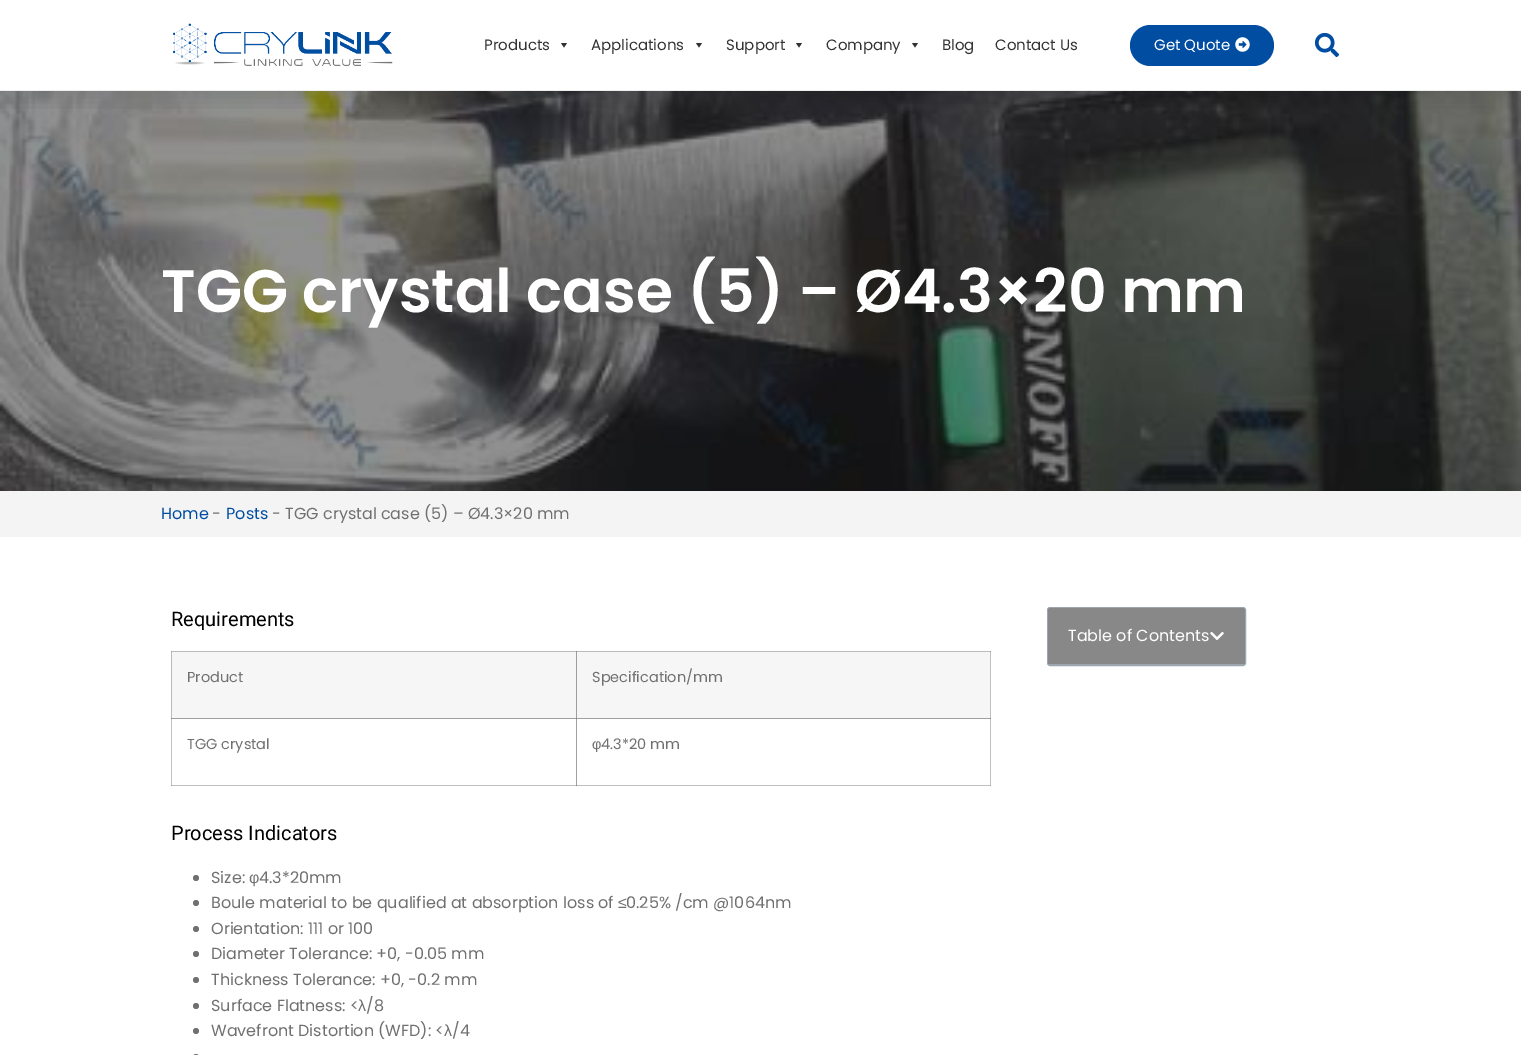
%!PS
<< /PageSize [1521 1055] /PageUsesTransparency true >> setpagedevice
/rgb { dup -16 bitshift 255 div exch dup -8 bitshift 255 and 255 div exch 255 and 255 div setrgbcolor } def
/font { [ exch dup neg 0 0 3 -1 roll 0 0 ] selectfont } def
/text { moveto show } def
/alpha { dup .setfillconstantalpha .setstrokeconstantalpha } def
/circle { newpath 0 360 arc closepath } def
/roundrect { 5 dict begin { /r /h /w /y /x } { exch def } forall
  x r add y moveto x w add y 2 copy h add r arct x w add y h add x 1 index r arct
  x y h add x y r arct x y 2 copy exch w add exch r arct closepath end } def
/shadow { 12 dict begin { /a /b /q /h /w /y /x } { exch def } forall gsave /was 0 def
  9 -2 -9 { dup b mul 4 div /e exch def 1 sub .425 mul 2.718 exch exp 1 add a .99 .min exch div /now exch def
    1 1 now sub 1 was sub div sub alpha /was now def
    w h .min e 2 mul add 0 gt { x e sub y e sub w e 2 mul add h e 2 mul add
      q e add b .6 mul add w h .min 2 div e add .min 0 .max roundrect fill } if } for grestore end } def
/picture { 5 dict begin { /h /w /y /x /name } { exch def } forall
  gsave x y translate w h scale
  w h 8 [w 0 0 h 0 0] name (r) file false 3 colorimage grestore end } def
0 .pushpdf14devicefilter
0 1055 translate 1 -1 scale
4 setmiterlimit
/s1 { /Poppins-Regular 15 font 16#333333 rgb } def
/s2 { /Poppins-Regular 15 font 16#FFFFFF rgb } def
/s3 { /Poppins-SemiBold 60 font 16#FFFFFF rgb } def
/s4 { /Poppins-Regular 16 font 16#004DA1 rgb } def
/s5 { /Poppins-Regular 16 font 16#717071 rgb } def
/s6 { /Roboto-Regular 20 font 16#000000 rgb } def
/s7 { /Poppins-Regular 14.5 font 16#717071 rgb } def
/s8 { /LiberationSans-Regular 14.5 font 16#717071 rgb } def
/s9 { /LiberationSans-Regular 16 font 16#717071 rgb } def
/s10 { /Poppins-Regular 16 font 16#FFFFFF rgb } def
16#FFFFFF rgb
0 0 1521 1055 rectfill
16#C0C0C0 rgb
990 651 1 68 rectfill
16#A0A0A0 rgb
990 651 1 1 rectfill
16#C0C0C0 rgb
171 718 1 68 rectfill
171 785 406 1 rectfill
16#A0A0A0 rgb
171 785 1 1 rectfill
171 718 406 1 rectfill
16#888888 rgb
171 718 1 1 rectfill
16#A0A0A0 rgb
576 718 1 68 rectfill
16#C0C0C0 rgb
576 785 415 1 rectfill
16#888888 rgb
576 785 1 1 rectfill
16#C0C0C0 rgb
990 718 1 68 rectfill
16#A0A0A0 rgb
990 785 1 1 rectfill
(pic4.raw) 0 91 1521 400 picture
gsave
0 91 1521 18 rectclip
16#000000 rgb
0 10 1521 91 0 10 0.1 shadow
grestore
16#EEEEEE rgb
0 90 1521 1 rectfill
(pic1.raw) 173 23 220 44 picture
s1
(Products) 484 50 text
567 43 moveto 564 47.5 lineto 561 43 lineto closepath fill
(Applications) 591 50 text
702 43 moveto 699 47.5 lineto 696 43 lineto closepath fill
(Support) 726 50 text
802 43 moveto 799 47.5 lineto 796 43 lineto closepath fill
(Company) 826 50 text
918 43 moveto 915 47.5 lineto 912 43 lineto closepath fill
(Blog) 942 50 text
(Contact Us) 995 50 text
16#004DA1 rgb
1130 25 144 41 20.5 roundrect fill
s2
(Get Quote) 1154 50 text
(pic2.raw) 1235 37 15 15 picture
(pic3.raw) 1315 33 24 24 picture
s3
(TGG crystal case \(5\) – Ø4.3×20 mm) 161 312 text
16#F4F4F4 rgb
0 491 1521 46 rectfill
s4
(Home) 161 519 text
s5
(-) 212 519 text
s4
(Posts) 226 519 text
s5
(- TGG crystal case \(5\) – Ø4.3×20 mm) 272 519 text
s6
(Requirements) 171 626 text
16#F6F6F6 rgb
172 652 404 66 rectfill
16#BBBBBB rgb
171 651 1 67 rectfill
171 651 819 1 rectfill
16#9E9E9E rgb
171 651 1 1 rectfill
576 651 1 67 rectfill
16#888888 rgb
576 651 1 1 rectfill
s7
(Product) 187 682 text
16#F6F6F6 rgb
577 652 413 66 rectfill
s7
(Specification/mm) 592 682 text
(TGG crystal) 187 749 text
16#A0A0A0 rgb
576 718 415 1 rectfill
16#818181 rgb
576 718 1 1 rectfill
16#888888 rgb
990 718 1 1 rectfill
s8
(φ) 592 749 text
s7
(4.3*20 mm) 601 749 text
s6
(Process Indicators) 171 840 text
16#717071 rgb
196 878 3 circle fill
s5
(Size:) 211 883 text
s9
(φ) 249 883 text
s5
(4.3*20mm) 259 883 text
196 903 3 circle fill
(Boule material to be qualified at absorption loss of) 211 908 text
s9
(≤) 618 908 text
s5
(0.25% /cm @1064nm) 626 908 text
196 929 3 circle fill
(Orientation: 111 or 100) 211 934 text
196 954 3 circle fill
(Diameter Tolerance: +0, -0.05 mm) 211 959 text
196 980 3 circle fill
(Thickness Tolerance: +0, -0.2 mm) 211 985 text
196 1006 3 circle fill
(Surface Flatness: <) 211 1011 text
s9
(λ) 358 1011 text
s5
(/8) 366 1011 text
196 1031 3 circle fill
(Wavefront Distortion \(WFD\): <) 211 1036 text
s9
(λ) 444 1036 text
s5
(/4) 452 1036 text
193 1054 6 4 3 roundrect fill
16#9DA5AE rgb
1047.5 607.5 198 58 2.5 roundrect stroke
16#888888 rgb
1048 608 197 57 2 roundrect fill
gsave
1048 608 197 57 2 roundrect clip newpath
16#9DA5AE rgb
1048 664 197 1 rectfill
grestore
s10
(Table of Contents) 1068 641 text
(pic5.raw) 1210 631 14 9 picture
.poppdf14devicefilter showpage
